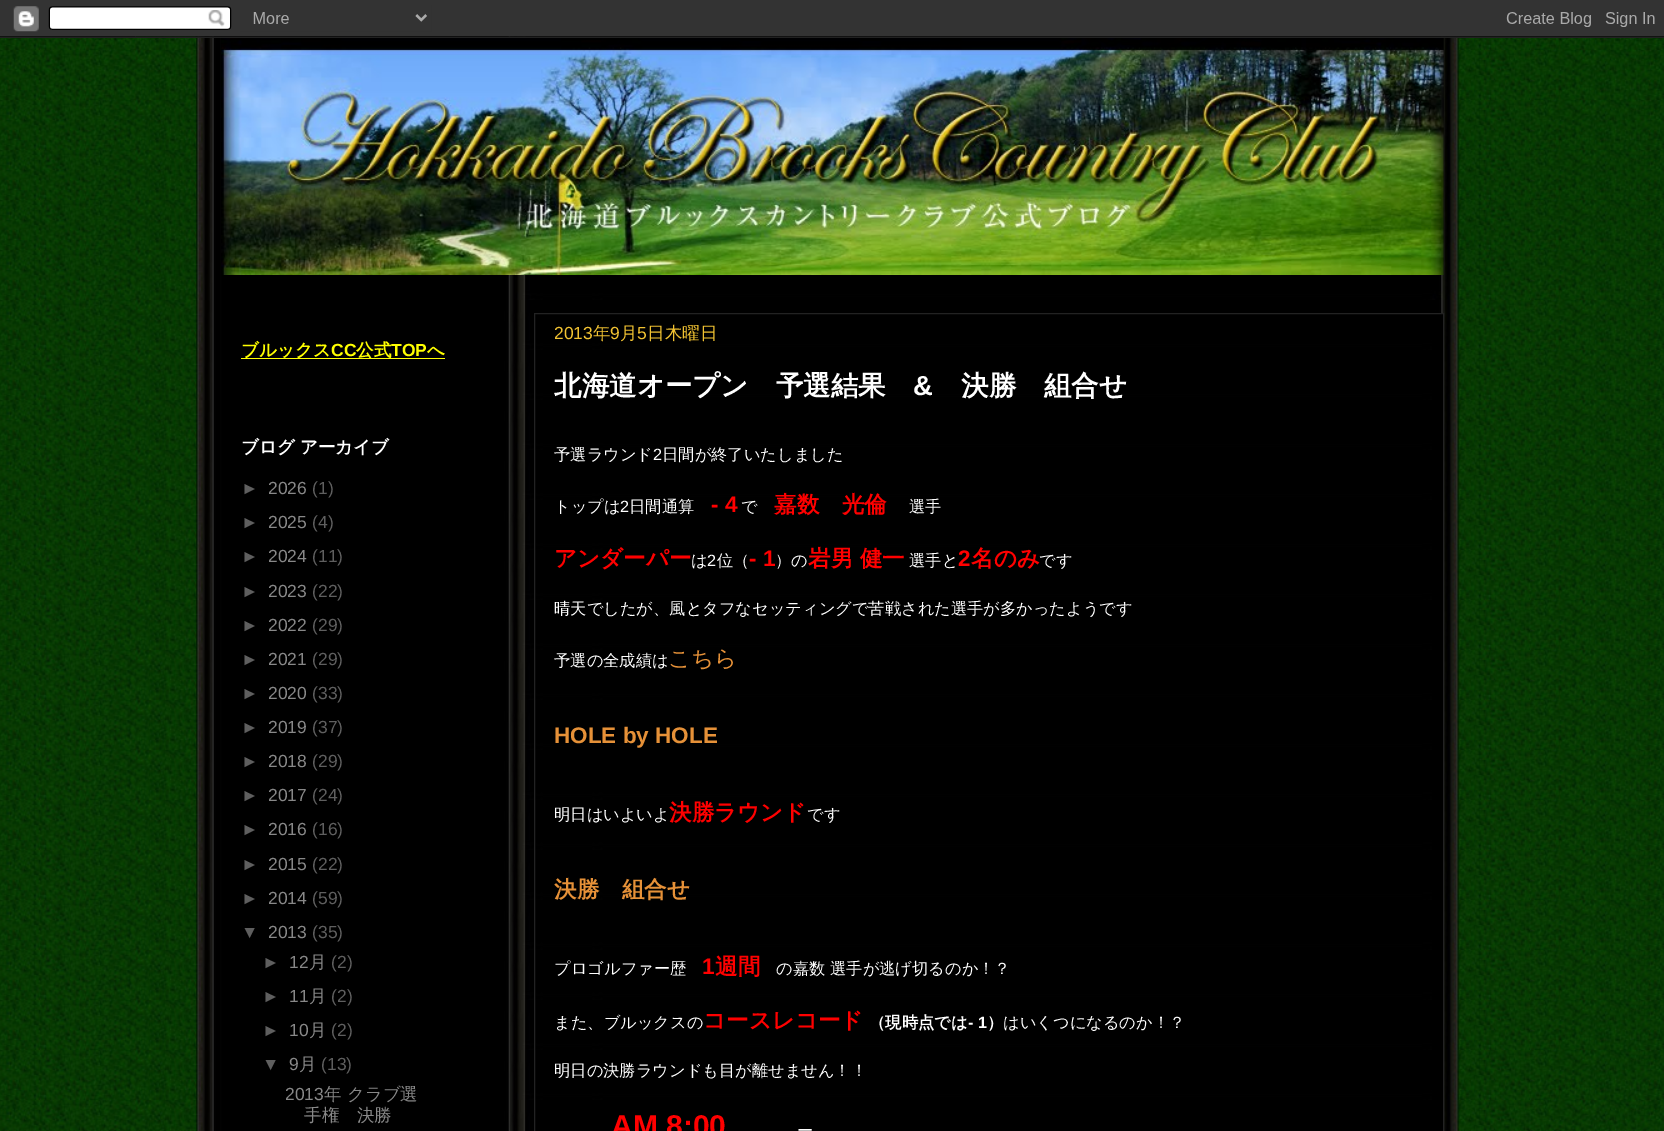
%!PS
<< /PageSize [1664 1131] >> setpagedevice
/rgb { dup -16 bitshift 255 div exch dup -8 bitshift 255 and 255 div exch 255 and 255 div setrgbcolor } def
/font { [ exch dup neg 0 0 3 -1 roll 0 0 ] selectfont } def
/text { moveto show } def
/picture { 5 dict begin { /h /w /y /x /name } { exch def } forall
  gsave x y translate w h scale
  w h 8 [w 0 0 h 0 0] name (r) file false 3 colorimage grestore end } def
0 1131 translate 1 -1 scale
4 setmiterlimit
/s1 { /WenQuanYiZenHei-Bold 17.5 font 16#FFFF00 rgb } def
/s2 { /LiberationSans-Bold 17.5 font 16#FFFF00 rgb } def
/s3 { /WenQuanYiZenHei-Bold 17.5 font 16#FFFFFF rgb } def
/s4 { /LiberationSans-Regular 17.5 font 16#5F5F5F rgb } def
/s5 { /LiberationSans-Regular 17.5 font 16#888888 rgb } def
/s6 { /WenQuanYiZenHei-Medium 17.5 font 16#888888 rgb } def
/s7 { /LiberationSans-Regular 17.5 font 16#F1C232 rgb } def
/s8 { /WenQuanYiZenHei-Medium 17.5 font 16#F1C232 rgb } def
/s9 { /WenQuanYiZenHei-Bold 27.5 font 16#FFFFFF rgb } def
/s10 { /LiberationSans-Bold 27.5 font 16#FFFFFF rgb } def
/s11 { /WenQuanYiZenHei-Medium 16.25 font 16#FFFFFF rgb } def
/s12 { /LiberationSans-Regular 16.25 font 16#FFFFFF rgb } def
/s13 { /LiberationSans-Bold 22.5 font 16#FF0000 rgb } def
/s14 { /WenQuanYiZenHei-Bold 22.5 font 16#FF0000 rgb } def
/s15 { /WenQuanYiZenHei-Medium 22.5 font 16#E69138 rgb } def
/s16 { /LiberationSans-Bold 22.5 font 16#E69138 rgb } def
/s17 { /WenQuanYiZenHei-Bold 22.5 font 16#E69138 rgb } def
/s18 { /WenQuanYiZenHei-Bold 16.25 font 16#FFFFFF rgb } def
/s19 { /LiberationSans-Bold 16.25 font 16#FFFFFF rgb } def
/s20 { /LiberationSans-Bold 30 font 16#FF0000 rgb } def
16#FFFFFF rgb
0 0 1664 1131 rectfill
(pic1.raw) 0 36 1664 1095 picture
(pic2.raw) 0 0 1664 38 picture
(pic3.raw) 221 38 1223 237 picture
16#FFFF00 rgb
241 358 204 1 rectfill
s1
(ブルックス) 241 356 text
s2
(CC) 331 356 text
s1
(公式) 356 356 text
s2
(TOP) 391 356 text
s1
(へ) 427 356 text
s3
(ブログ アーカイブ) 241 453 text
s4
(►) 241 494 text
s5
(2026) 268 494 text
s4
(\(1\)) 312 494 text
(►) 241 528 text
s5
(2025) 268 528 text
s4
(\(4\)) 312 528 text
(►) 241 562 text
s5
(2024) 268 562 text
s4
(\(11\)) 312 562 text
(►) 241 597 text
s5
(2023) 268 597 text
s4
(\(22\)) 312 597 text
(►) 241 631 text
s5
(2022) 268 631 text
s4
(\(29\)) 312 631 text
(►) 241 665 text
s5
(2021) 268 665 text
s4
(\(29\)) 312 665 text
(►) 241 699 text
s5
(2020) 268 699 text
s4
(\(33\)) 312 699 text
(►) 241 733 text
s5
(2019) 268 733 text
s4
(\(37\)) 312 733 text
(►) 241 767 text
s5
(2018) 268 767 text
s4
(\(29\)) 312 767 text
(►) 241 801 text
s5
(2017) 268 801 text
s4
(\(24\)) 312 801 text
(►) 241 835 text
s5
(2016) 268 835 text
s4
(\(16\)) 312 835 text
(►) 241 870 text
s5
(2015) 268 870 text
s4
(\(22\)) 312 870 text
(►) 241 904 text
s5
(2014) 268 904 text
s4
(\(59\)) 312 904 text
(▼) 241 938 text
s5
(2013) 268 938 text
s4
(\(35\)) 312 938 text
(►) 262 968 text
s5
(12) 289 968 text
s6
(月) 309 968 text
s4
(\(2\)) 331 968 text
(►) 262 1002 text
s5
(11) 289 1002 text
s6
(月) 309 1002 text
s4
(\(2\)) 331 1002 text
(►) 262 1036 text
s5
(10) 289 1036 text
s6
(月) 309 1036 text
s4
(\(2\)) 331 1036 text
(▼) 262 1070 text
s5
(9) 289 1070 text
s6
(月) 299 1070 text
s4
(\(13\)) 321 1070 text
s5
(2013) 285 1100 text
s6
(年 クラブ選) 324 1100 text
(手権　決勝) 304 1121 text
16#000000 rgb
1432 314 11 817 rectfill
16#222222 rgb
534.5 313.5 909 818 rectstroke
s7
(2013) 554 339 text
s8
(年) 593 339 text
s7
(9) 610 339 text
s8
(月) 620 339 text
s7
(5) 637 339 text
s8
(日木曜日) 647 339 text
s9
(北海道オープン　予選結果) 554 395 text
s10
(&) 913 395 text
s9
(決勝　組合せ) 961 395 text
s11
(予選ラウンド) 554 460 text
s12
(2) 653 460 text
s11
(日間が終了いたしました) 662 460 text
(トップは) 554 512 text
s12
(2) 620 512 text
s11
(日間通算) 629 512 text
s13
(- 4) 711 512 text
s11
(で) 741 512 text
s14
(嘉数　光倫) 774 512 text
s11
(選手) 909 512 text
s14
(アンダーパー) 554 566 text
s11
(は) 691 566 text
s12
(2) 707 566 text
s11
(位（) 717 566 text
s13
(- 1) 749 566 text
s11
(）の) 775 566 text
s14
(岩男 健一) 808 566 text
s11
(選手と) 909 566 text
s13
(2) 958 566 text
s14
(名のみ) 971 566 text
s11
(です) 1039 566 text
(晴天でしたが、風とタフなセッティングで苦戦された選手が多かったようです) 554 614 text
(予選の全成績は) 554 666 text
s15
(こちら) 668 666 text
s16
(HOLE by HOLE) 554 743 text
s11
(明日はいよいよ) 554 820 text
s14
(決勝ラウンド) 669 820 text
s11
(です) 807 820 text
s17
(決勝　組合せ) 554 897 text
s11
(プロゴルファー歴) 554 974 text
s13
(1) 702 974 text
s14
(週間) 715 974 text
s11
(の嘉数 選手が逃げ切るのか！？) 776 974 text
(また、ブルックスの) 554 1028 text
s14
(コースレコード) 703 1028 text
s18
(（現時点では) 869 1028 text
s19
(- 1) 968 1028 text
s18
(）) 987 1028 text
s11
(はいくつになるのか！？) 1003 1028 text
(明日の決勝ラウンドも目が離せません！！) 554 1076 text
s20
(AM 8:00) 611 1136 text
s11
(ー) 797 1136 text
showpage
